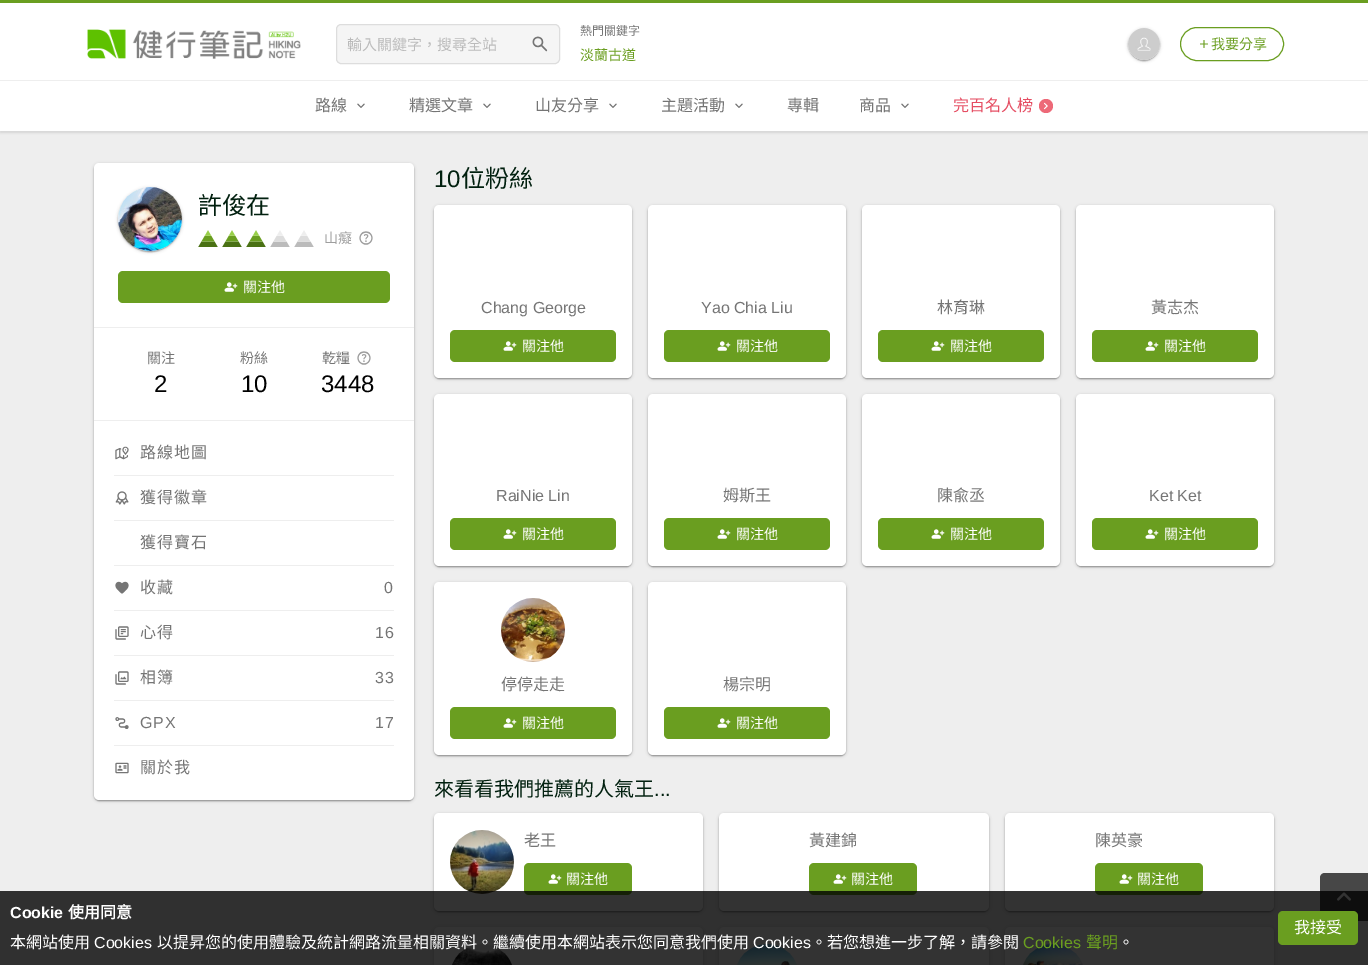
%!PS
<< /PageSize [1368 965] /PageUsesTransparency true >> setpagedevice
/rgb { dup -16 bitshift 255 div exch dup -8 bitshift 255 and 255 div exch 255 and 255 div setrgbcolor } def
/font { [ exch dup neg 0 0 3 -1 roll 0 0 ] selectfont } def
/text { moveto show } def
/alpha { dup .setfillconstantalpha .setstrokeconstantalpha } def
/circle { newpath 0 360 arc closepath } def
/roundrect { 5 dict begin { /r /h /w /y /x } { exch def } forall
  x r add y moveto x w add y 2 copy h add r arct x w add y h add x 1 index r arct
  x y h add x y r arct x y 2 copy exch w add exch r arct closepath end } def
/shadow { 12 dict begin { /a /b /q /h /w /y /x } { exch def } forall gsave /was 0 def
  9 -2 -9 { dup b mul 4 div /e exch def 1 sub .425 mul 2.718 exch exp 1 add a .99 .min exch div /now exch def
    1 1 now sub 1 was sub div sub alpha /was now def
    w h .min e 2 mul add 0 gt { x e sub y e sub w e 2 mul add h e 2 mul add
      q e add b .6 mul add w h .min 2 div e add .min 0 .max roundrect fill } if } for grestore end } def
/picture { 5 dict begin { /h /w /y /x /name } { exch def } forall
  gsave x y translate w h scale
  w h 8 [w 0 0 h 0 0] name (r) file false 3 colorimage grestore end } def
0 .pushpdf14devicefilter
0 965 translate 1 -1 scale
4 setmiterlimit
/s1 { /NotoSansCJKTC-Regular 15 font 16#BBBBBB rgb } def
/s2 { /NotoSansCJKTC-Regular 12 font 16#757575 rgb } def
/s3 { /NotoSansCJKTC-Regular 14 font 16#6A9E20 rgb } def
/s4 { /NotoSansCJKTC-Regular 16 font 16#757575 rgb } def
/s5 { /NotoSansCJKTC-Regular 16 font 16#E54E63 rgb } def
/s6 { /NotoSansCJKTC-Regular 24 font 16#01200F rgb } def
/s7 { /NotoSansCJKTC-Regular 14 font 16#9E9E9E rgb } def
/s8 { /NotoSansCJKTC-Regular 14 font 16#FFFFFF rgb } def
/s9 { /NotoSansCJKTC-Regular 14 font 16#757575 rgb } def
/s10 { /LiberationSans-Regular 24 font 16#000000 rgb } def
/s11 { /LiberationSans-Regular 24 font 16#01200F rgb } def
/s12 { /LiberationSans-Regular 16 font 16#757575 rgb } def
/s13 { /NotoSansCJKTC-Regular 20 font 16#01200F rgb } def
/s14 { /LiberationSans-Regular 20 font 16#01200F rgb } def
/s15 { /LiberationSans-Bold 16 font 16#FFFFFF rgb } def
/s16 { /NotoSansCJKTC-Bold 16 font 16#FFFFFF rgb } def
/s17 { /NotoSansCJKTC-Regular 16 font 16#FFFFFF rgb } def
/s18 { /LiberationSans-Regular 16 font 16#FFFFFF rgb } def
/s19 { /LiberationSans-Regular 16 font 16#6A9E20 rgb } def
/s20 { /NotoSansCJKTC-Regular 16 font 16#6A9E20 rgb } def
16#EEEEEE rgb
0 0 1368 965 rectfill
16#000000 rgb
0 2 1368 131 0 1 0.1 shadow
16#FFFFFF rgb
0 3 1368 128 rectfill
16#6A9E20 rgb
0 0 1368 3 rectfill
(pic1.raw) 87 29 214 30 picture
16#F5F5F5 rgb
336.5 24.5 223 39 4.5 roundrect gsave fill grestore
16#DDDDDD rgb
stroke
s1
(輸入關鍵字，搜尋全站) 347 50 text
(pic2.raw) 532 36 16 16 picture
s2
(熱門關鍵字) 580 35 text
s3
(淡蘭古道) 580 60 text
16#000000 rgb
1128 29 32 32 16 1.5 0.2 shadow
1129 31 30 30 15 0.5 0.12 shadow
1128 29 32 32 16 0.5 0.14 shadow
(pic3.raw) 1128 28 32 32 picture
16#6A9E20 rgb
1180.5 27.5 103 33 16.5 roundrect stroke
(pic4.raw) 1200 40 8 8 picture
(我要分享) 1211 49 text
16#EEEEEE rgb
0 80 1368 1 rectfill
s4
(路線) 315 111 text
(pic5.raw) 357 103 8 5 picture
(精選文章) 409 111 text
(pic5.raw) 483 103 8 5 picture
(山友分享) 535 111 text
(pic5.raw) 609 103 8 5 picture
(主題活動) 661 111 text
(pic5.raw) 735 103 8 5 picture
(專輯) 787 111 text
(商品) 859 111 text
(pic5.raw) 901 103 8 5 picture
s5
(完百名人榜) 953 111 text
16#ED6978 rgb
1046 106 7 circle fill
(pic6.raw) 1043 102 5 8 picture
16#000000 rgb
94 164 320 637 5 1.5 0.2 shadow
95 166 318 635 4 0.5 0.12 shadow
94 164 320 637 5 0.5 0.14 shadow
16#FFFFFF rgb
94 163 320 637 5 roundrect fill
16#000000 rgb
118 188 64 64 32 1.5 0.2 shadow
119 190 62 62 31 0.5 0.12 shadow
118 188 64 64 32 0.5 0.14 shadow
(pic7.raw) 118 187 64 64 picture
s6
(許俊在) 198 214 text
(pic8.raw) 198 230 20 17 picture
(pic8.raw) 222 230 20 17 picture
(pic8.raw) 246 230 20 17 picture
(pic9.raw) 270 230 20 17 picture
(pic9.raw) 294 230 20 17 picture
s7
(山癡) 324 243 text
(pic10.raw) 359 231 14 14 picture
16#6A9E20 rgb
118 271 272 32 5 roundrect fill
(pic11.raw) 224 282 14 10 picture
s8
(關注他) 243 292 text
16#EEEEEE rgb
94 327 320 1 rectfill
s9
(關注) 147 363 text
s10
(2) 154 392 text
s9
(粉絲) 240 363 text
s10
(10) 241 392 text
s9
(乾糧) 322 363 text
(pic12.raw) 357 351 14 14 picture
s10
(3448) 321 392 text
16#EEEEEE rgb
94 420 320 1 rectfill
(pic13.raw) 115 446 14 14 picture
/NotoSansCJKTC-Regular 16 font
16#757575 rgb
140 458 moveto 1 0 (路線地圖) ashow
16#EEEEEE rgb
114 475 280 1 rectfill
(pic14.raw) 115 491 14 14 picture
16#757575 rgb
140 503 moveto 1 0 (獲得徽章) ashow
16#EEEEEE rgb
114 520 280 1 rectfill
16#757575 rgb
140 548 moveto 1 0 (獲得寶石) ashow
16#EEEEEE rgb
114 565 280 1 rectfill
(pic15.raw) 115 581 14 13 picture
16#757575 rgb
140 593 moveto 1 0 (收藏) ashow
/LiberationSans-Regular 16 font
384 593 moveto 1 0 (0) ashow
16#EEEEEE rgb
114 610 280 1 rectfill
(pic16.raw) 115 626 14 14 picture
/NotoSansCJKTC-Regular 16 font
16#757575 rgb
140 638 moveto 1 0 (心得) ashow
/LiberationSans-Regular 16 font
375 638 moveto 1 0 (16) ashow
16#EEEEEE rgb
114 655 280 1 rectfill
(pic17.raw) 115 671 14 14 picture
/NotoSansCJKTC-Regular 16 font
16#757575 rgb
140 683 moveto 1 0 (相簿) ashow
/LiberationSans-Regular 16 font
375 683 moveto 1 0 (33) ashow
16#EEEEEE rgb
114 700 280 1 rectfill
(pic18.raw) 115 717 14 12 picture
16#757575 rgb
140 728 moveto 1 0 (GPX) ashow
375 728 moveto 1 0 (17) ashow
16#EEEEEE rgb
114 745 280 1 rectfill
(pic19.raw) 115 762 14 12 picture
/NotoSansCJKTC-Regular 16 font
16#757575 rgb
140 773 moveto 1 0 (關於我) ashow
s11
(10) 434 187 text
s6
(位粉絲) 461 187 text
16#000000 rgb
434 206 198 173 5 1.5 0.2 shadow
435 208 196 171 4 0.5 0.12 shadow
434 206 198 173 5 0.5 0.14 shadow
16#FFFFFF rgb
434 205 198 173 5 roundrect fill
s12
(Chang George) 481 313 text
16#6A9E20 rgb
450 330 166 32 5 roundrect fill
(pic20.raw) 503 341 14 10 picture
s8
(關注他) 522 351 text
16#000000 rgb
648 206 198 173 5 1.5 0.2 shadow
649 208 196 171 4 0.5 0.12 shadow
648 206 198 173 5 0.5 0.14 shadow
16#FFFFFF rgb
648 205 198 173 5 roundrect fill
s12
(Yao Chia Liu) 701 313 text
16#6A9E20 rgb
664 330 166 32 5 roundrect fill
(pic11.raw) 717 341 14 10 picture
s8
(關注他) 736 351 text
16#000000 rgb
862 206 198 173 5 1.5 0.2 shadow
863 208 196 171 4 0.5 0.12 shadow
862 206 198 173 5 0.5 0.14 shadow
16#FFFFFF rgb
862 205 198 173 5 roundrect fill
s4
(林育琳) 937 313 text
16#6A9E20 rgb
878 330 166 32 5 roundrect fill
(pic11.raw) 931 341 14 10 picture
s8
(關注他) 950 351 text
16#000000 rgb
1076 206 198 173 5 1.5 0.2 shadow
1077 208 196 171 4 0.5 0.12 shadow
1076 206 198 173 5 0.5 0.14 shadow
16#FFFFFF rgb
1076 205 198 173 5 roundrect fill
s4
(黃志杰) 1151 313 text
16#6A9E20 rgb
1092 330 166 32 5 roundrect fill
(pic11.raw) 1145 341 14 10 picture
s8
(關注他) 1164 351 text
16#000000 rgb
434 395 198 172 5 1.5 0.2 shadow
435 397 196 170 4 0.5 0.12 shadow
434 395 198 172 5 0.5 0.14 shadow
16#FFFFFF rgb
434 394 198 172 5 roundrect fill
s12
(RaiNie Lin) 496 501 text
16#6A9E20 rgb
450 518 166 32 5 roundrect fill
(pic20.raw) 503 529 14 10 picture
s8
(關注他) 522 539 text
16#000000 rgb
648 395 198 172 5 1.5 0.2 shadow
649 397 196 170 4 0.5 0.12 shadow
648 395 198 172 5 0.5 0.14 shadow
16#FFFFFF rgb
648 394 198 172 5 roundrect fill
s4
(姆斯王) 723 501 text
16#6A9E20 rgb
664 518 166 32 5 roundrect fill
(pic11.raw) 717 529 14 10 picture
s8
(關注他) 736 539 text
16#000000 rgb
862 395 198 172 5 1.5 0.2 shadow
863 397 196 170 4 0.5 0.12 shadow
862 395 198 172 5 0.5 0.14 shadow
16#FFFFFF rgb
862 394 198 172 5 roundrect fill
s4
(陳兪丞) 937 501 text
16#6A9E20 rgb
878 518 166 32 5 roundrect fill
(pic11.raw) 931 529 14 10 picture
s8
(關注他) 950 539 text
16#000000 rgb
1076 395 198 172 5 1.5 0.2 shadow
1077 397 196 170 4 0.5 0.12 shadow
1076 395 198 172 5 0.5 0.14 shadow
16#FFFFFF rgb
1076 394 198 172 5 roundrect fill
s12
(Ket Ket) 1149 501 text
16#6A9E20 rgb
1092 518 166 32 5 roundrect fill
(pic11.raw) 1145 529 14 10 picture
s8
(關注他) 1164 539 text
16#000000 rgb
434 583 198 173 5 1.5 0.2 shadow
435 585 196 171 4 0.5 0.12 shadow
434 583 198 173 5 0.5 0.14 shadow
16#FFFFFF rgb
434 582 198 173 5 roundrect fill
(pic21.raw) 501 598 64 64 picture
s4
(停停走走) 501 690 text
16#6A9E20 rgb
450 707 166 32 5 roundrect fill
(pic20.raw) 503 718 14 10 picture
s8
(關注他) 522 728 text
16#000000 rgb
648 583 198 173 5 1.5 0.2 shadow
649 585 196 171 4 0.5 0.12 shadow
648 583 198 173 5 0.5 0.14 shadow
16#FFFFFF rgb
648 582 198 173 5 roundrect fill
s4
(楊宗明) 723 690 text
16#6A9E20 rgb
664 707 166 32 5 roundrect fill
(pic11.raw) 717 718 14 10 picture
s8
(關注他) 736 728 text
s13
(來看看我們推薦的人氣王) 434 796 text
s14
(...) 654 796 text
16#000000 rgb
434 814 269 98 5 1.5 0.2 shadow
435 816 267 96 4 0.5 0.12 shadow
434 814 269 98 5 0.5 0.14 shadow
16#FFFFFF rgb
434 813 269 98 5 roundrect fill
(pic22.raw) 450 830 64 64 picture
s4
(老王) 524 846 text
16#6A9E20 rgb
524 863 108 32 5 roundrect fill
(pic11.raw) 548 874 14 10 picture
s8
(關注他) 566 884 text
16#000000 rgb
719 814 270 98 5 1.5 0.2 shadow
720 816 268 96 4 0.5 0.12 shadow
719 814 270 98 5 0.5 0.14 shadow
16#FFFFFF rgb
719 813 270 98 5 roundrect fill
s4
(黃建錦) 809 846 text
16#6A9E20 rgb
809 863 108 32 5 roundrect fill
(pic11.raw) 833 874 14 10 picture
s8
(關注他) 851 884 text
16#000000 rgb
1005 814 269 98 5 1.5 0.2 shadow
1006 816 267 96 4 0.5 0.12 shadow
1005 814 269 98 5 0.5 0.14 shadow
16#FFFFFF rgb
1005 813 269 98 5 roundrect fill
s4
(陳英豪) 1095 846 text
16#6A9E20 rgb
1095 863 108 32 5 roundrect fill
(pic11.raw) 1119 874 14 10 picture
s8
(關注他) 1137 884 text
16#000000 rgb
434 928 269 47 5 1.5 0.2 shadow
16#FFFFFF rgb
434 927 269 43 5 roundrect fill
(pic23.raw) 452 944 60 21 picture
16#000000 rgb
719 928 270 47 5 1.5 0.2 shadow
16#FFFFFF rgb
719 927 270 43 5 roundrect fill
(pic24.raw) 737 944 60 21 picture
16#000000 rgb
1005 928 269 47 5 1.5 0.2 shadow
16#FFFFFF rgb
1005 927 269 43 5 roundrect fill
(pic25.raw) 1023 944 60 21 picture
16#474747 rgb
1325 873 moveto 1368 873 lineto 1368 921 lineto 1325 921 lineto 1322 921 1320 919 1320 916 curveto 1320 878 lineto 1320 875 1322 873 1325 873 curveto closepath fill
(pic26.raw) 1337 892 14 9 picture
0.8 alpha
16#000000 rgb
0 891 1368 74 rectfill
1 alpha
s15
(Cookie) 10 918 text
s16
(使用同意) 68 918 text
s17
(本網站使用) 10 948 text
s18
(Cookies) 94 948 text
s17
(以提昇您的使用體驗及統計網路流量相關資料。繼續使用本網站表示您同意我們使用) 157 948 text
s18
(Cookies) 753 948 text
s17
(。若您想進一步了解，請參閱) 811 948 text
s19
(Cookies) 1023 948 text
s20
(聲明) 1086 948 text
s17
(。) 1118 948 text
16#6A9E20 rgb
1278 911 80 34 5 roundrect fill
s17
(我接受) 1294 933 text
.poppdf14devicefilter showpage
